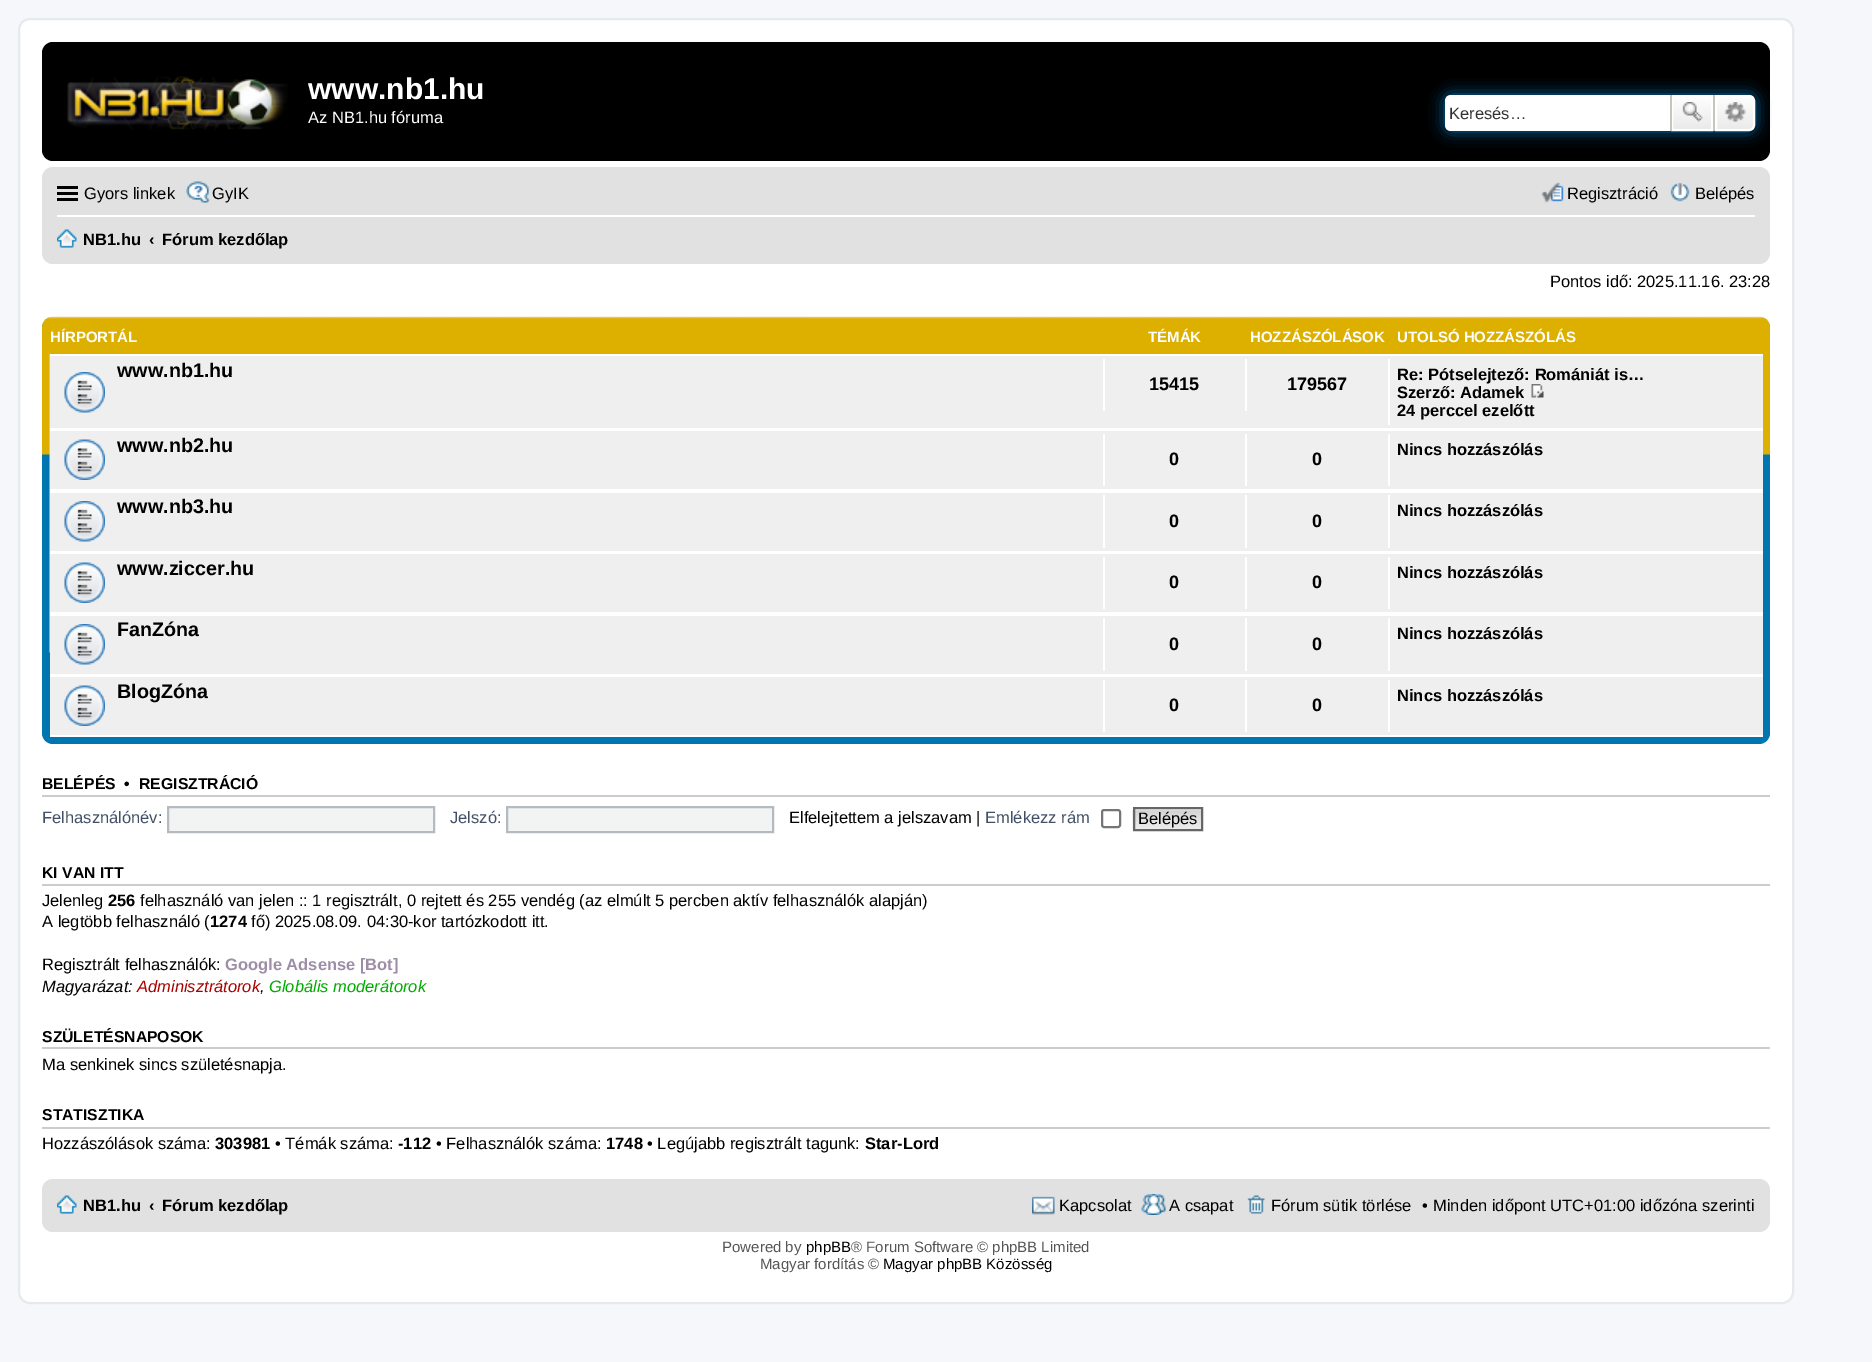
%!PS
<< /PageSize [1872 1362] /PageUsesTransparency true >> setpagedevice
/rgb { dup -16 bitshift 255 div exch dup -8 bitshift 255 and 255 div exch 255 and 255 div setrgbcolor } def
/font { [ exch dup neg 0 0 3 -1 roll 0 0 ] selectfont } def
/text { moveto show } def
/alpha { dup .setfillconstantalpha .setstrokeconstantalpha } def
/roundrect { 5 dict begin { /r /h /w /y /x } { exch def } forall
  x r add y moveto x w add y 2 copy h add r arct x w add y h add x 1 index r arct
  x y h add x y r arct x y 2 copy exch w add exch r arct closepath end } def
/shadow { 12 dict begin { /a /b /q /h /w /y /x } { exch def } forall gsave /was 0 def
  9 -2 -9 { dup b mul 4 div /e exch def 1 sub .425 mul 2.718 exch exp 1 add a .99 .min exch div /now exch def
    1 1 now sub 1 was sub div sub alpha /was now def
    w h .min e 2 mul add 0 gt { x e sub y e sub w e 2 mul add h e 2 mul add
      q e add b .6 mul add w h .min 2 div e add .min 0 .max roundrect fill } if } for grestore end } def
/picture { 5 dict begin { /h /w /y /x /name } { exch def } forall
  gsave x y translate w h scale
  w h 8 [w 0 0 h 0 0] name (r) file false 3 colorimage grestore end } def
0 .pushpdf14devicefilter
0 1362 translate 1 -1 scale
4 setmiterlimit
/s1 { /LiberationSans-Bold 30 font 16#FFFFFF rgb } def
/s2 { /LiberationSans-Regular 16.5 font 16#FFFFFF rgb } def
/s3 { /LiberationSans-Regular 16.5 font 16#333333 rgb } def
/s4 { /LiberationSans-Regular 16.5 font 16#000000 rgb } def
/s5 { /LiberationSans-Bold 16.5 font 16#000000 rgb } def
/s6 { /LiberationSans-Bold 15 font 16#FFFFFF rgb } def
/s7 { /LiberationSans-Bold 19.75 font 16#000000 rgb } def
/s8 { /LiberationSans-Bold 18 font 16#000000 rgb } def
/s9 { /LiberationSans-Bold 15.75 font 16#000000 rgb } def
/s10 { /LiberationSans-Regular 16.5 font 16#425067 rgb } def
/s11 { /LiberationSans-Bold 16.5 font 16#9E8DA7 rgb } def
/s12 { /LiberationSans-Italic 16.5 font 16#000000 rgb } def
/s13 { /LiberationSans-Italic 16.5 font 16#AA0000 rgb } def
/s14 { /LiberationSans-Italic 16.5 font 16#00AA00 rgb } def
/s15 { /LiberationSans-Regular 15 font 16#555555 rgb } def
/s16 { /LiberationSans-Regular 15 font 16#000000 rgb } def
16#F5F7FA rgb
0 0 1872 1362 rectfill
16#FFFFFF rgb
19 19 1774 1284 11 roundrect gsave fill grestore
16#E6E9ED rgb
2 setlinewidth
stroke
16#000000 rgb
42 42 1728 119 11 roundrect fill
(pic1.raw) 67 76 221 54 picture
s1
(www.nb1.hu) 308 99 text
s2
(Az NB1.hu fóruma) 308 123 text
16#0075B0 rgb
1445 95 310 36 6 7.5 1 shadow
16#FFFFFF rgb
1451 95 moveto 1670 95 lineto 1670 131 lineto 1451 131 lineto 1447.5 131 1445 128.5 1445 125 curveto 1445 101 lineto 1445 97.5 1447.5 95 1451 95 curveto closepath fill
s3
(Keresés…) 1449 119 text
gsave 1673 97 moveto 1711 97 lineto 1711 129 lineto 1673 129 lineto closepath clip newpath
<< /ShadingType 2 /ColorSpace /DeviceRGB /Coords [1692 95 1692 131] /Extend [true true] /Function << /FunctionType 2 /Domain [0 1] /C0 [1 1 1] /C1 [0.914 0.914 0.914] /N 1 >> >> shfill grestore
16#FFFFFF rgb
1672 96 40 34 rectstroke
16#C7C3BF rgb
1713 95 2 36 rectfill
1670 95 2 36 rectfill
(pic2.raw) 1682 102 21 20 picture
gsave 1716 96 moveto 1749 96 lineto 1752 96 1754 98 1754 101 curveto 1754 125 lineto 1754 128 1752 130 1749 130 curveto 1716 130 lineto closepath clip newpath
<< /ShadingType 2 /ColorSpace /DeviceRGB /Coords [1735 95 1735 131] /Extend [true true] /Function << /FunctionType 2 /Domain [0 1] /C0 [1 1 1] /C1 [0.914 0.914 0.914] /N 1 >> >> shfill grestore
16#FFFFFF rgb
1716 96 moveto 1749 96 lineto 1752 96 1754 98 1754 101 curveto 1754 125 lineto 1754 128 1752 130 1749 130 curveto 1716 130 lineto closepath stroke
(pic3.raw) 1724 102 23 20 picture
16#E1E1E1 rgb
42 167 1728 97 11 roundrect fill
16#000000 rgb
57 186 21 3 rectfill
57 192 21 3 rectfill
57 198 21 3 rectfill
(Gyors linkek) 84 199 text
(pic4.raw) 186 181 24 22 picture
(GyIK) 212 199 text
(pic5.raw) 1541 182 23 21 picture
(Regisztráció) 1567 199 text
(pic6.raw) 1670 182 20 20 picture
(Belépés) 1695 199 text
16#FFFFFF rgb
57 215 1698 2 rectfill
(pic7.raw) 57 229 20 19 picture
s5
(NB1.hu) 83 245 text
(‹) 149 245 text
(Fórum kezdőlap) 162 245 text
s4
(Pontos idő: 2025.11.16. 23:28) 1550 287 text
16#0076B1 rgb
42 317 1728 427 11 roundrect fill
(pic8.raw) 42 316 1728 139 picture
s6
(HÍRPORTÁL) 50 342 text
(TÉMÁK) 1148 342 text
(HOZZÁSZÓLÁSOK) 1250 342 text
(UTOLSÓ HOZZÁSZÓLÁS) 1397 342 text
(pic9.raw) 49 354 1 299 picture
16#EFEFEF rgb
50 356 1713 72 rectfill
16#FFFFFF rgb
50 354 1713 2 rectfill
50 428 1713 3 rectfill
(pic10.raw) 64 372 41 41 picture
s7
(www.nb1.hu) 117 377 text
16#FFFFFF rgb
1103 359 2 52 rectfill
s8
(15415) 1149 390 text
16#FFFFFF rgb
1245 359 2 52 rectfill
s8
(179567) 1287 390 text
16#FFFFFF rgb
1388 359 2 66 rectfill
s5
(Re: Pótselejtező: Romániát is…) 1397 380 text
(Szerző: Adamek) 1397 398 text
(pic11.raw) 1531 384 13 14 picture
(24 perccel ezelőtt) 1397 416 text
16#EFEFEF rgb
50 431 1713 58 rectfill
16#FFFFFF rgb
50 489 1713 4 rectfill
(pic12.raw) 64 439 41 41 picture
s7
(www.nb2.hu) 117 452 text
16#FFFFFF rgb
1388 434 2 52 rectfill
s5
(Nincs hozzászólás) 1397 455 text
16#FFFFFF rgb
1103 434 2 52 rectfill
s8
(0) 1169 465 text
16#FFFFFF rgb
1245 434 2 52 rectfill
s8
(0) 1312 465 text
16#EFEFEF rgb
50 493 1713 58 rectfill
16#FFFFFF rgb
50 551 1713 3 rectfill
(pic10.raw) 64 501 41 41 picture
s7
(www.nb3.hu) 117 513 text
16#FFFFFF rgb
1388 495 2 53 rectfill
s5
(Nincs hozzászólás) 1397 516 text
16#FFFFFF rgb
1103 495 2 53 rectfill
s8
(0) 1169 527 text
16#FFFFFF rgb
1245 495 2 53 rectfill
s8
(0) 1312 527 text
16#EFEFEF rgb
50 554 1713 58 rectfill
16#FFFFFF rgb
50 612 1713 4 rectfill
(pic12.raw) 64 562 41 41 picture
s7
(www.ziccer.hu) 117 575 text
16#FFFFFF rgb
1388 557 2 52 rectfill
s5
(Nincs hozzászólás) 1397 578 text
16#FFFFFF rgb
1103 557 2 52 rectfill
s8
(0) 1169 588 text
16#FFFFFF rgb
1245 557 2 52 rectfill
s8
(0) 1312 588 text
16#EFEFEF rgb
50 616 1713 58 rectfill
16#FFFFFF rgb
50 674 1713 3 rectfill
(pic10.raw) 64 624 41 41 picture
s7
(FanZóna) 117 636 text
16#FFFFFF rgb
1388 618 2 53 rectfill
s5
(Nincs hozzászólás) 1397 639 text
16#FFFFFF rgb
1103 618 2 53 rectfill
s8
(0) 1169 650 text
16#FFFFFF rgb
1245 618 2 53 rectfill
s8
(0) 1312 650 text
16#EFEFEF rgb
50 677 1713 58 rectfill
16#FFFFFF rgb
50 735 1713 2 rectfill
(pic12.raw) 64 685 41 41 picture
s7
(BlogZóna) 117 698 text
16#FFFFFF rgb
1388 680 2 52 rectfill
s5
(Nincs hozzászólás) 1397 701 text
16#FFFFFF rgb
1103 680 2 52 rectfill
s8
(0) 1169 711 text
16#FFFFFF rgb
1245 680 2 52 rectfill
s8
(0) 1312 711 text
16#CCCCCC rgb
42 795 1728 2 rectfill
s9
(BELÉPÉS) 42 789 text
(•) 124 789 text
(REGISZTRÁCIÓ) 139 789 text
s10
(Felhasználónév:) 42 823 text
16#F2F3F3 rgb
168 807 moveto 434 807 lineto 434 832 lineto 168 832 lineto closepath gsave fill grestore
16#B4BAC0 rgb
stroke
s10
(Jelszó:) 450 823 text
16#F2F3F3 rgb
507 807 moveto 773 807 lineto 773 832 lineto 507 832 lineto closepath gsave fill grestore
16#B4BAC0 rgb
stroke
s4
(Elfelejtettem a jelszavam |) 789 823 text
s10
(Emlékezz rám) 985 823 text
16#767676 rgb
1102 810 18 17 2 roundrect stroke
(pic13.raw) 1132 809 69 22 picture
16#666666 rgb
1134 808 68 22 rectstroke
s4
(Belépés) 1138 824 text
16#CCCCCC rgb
42 884 1728 2 rectfill
s9
(KI VAN ITT) 42 878 text
s4
(Jelenleg) 42 906 text
s5
(256) 108 906 text
s4
(felhasználó van jelen :: 1 regisztrált, 0 rejtett és 255 vendég \(az elmúlt 5 percben aktív felhasználók alapján\)) 140 906 text
(A legtöbb felhasználó \() 42 927 text
s5
(1274) 210 927 text
s4
(fő\) 2025.08.09. 04:30-kor tartózkodott itt.) 251 927 text
(Regisztrált felhasználók:) 42 970 text
s11
(Google Adsense [Bot]) 225 970 text
s12
(Magyarázat:) 42 992 text
s13
(Adminisztrátorok) 137 992 text
s12
(,) 260 992 text
s14
(Globális moderátorok) 269 992 text
16#CCCCCC rgb
42 1047 1728 2 rectfill
s9
(SZÜLETÉSNAPOSOK) 42 1042 text
s4
(Ma senkinek sincs születésnapja.) 42 1070 text
16#CCCCCC rgb
42 1127 1728 2 rectfill
s9
(STATISZTIKA) 42 1120 text
s4
(Hozzászólások száma:) 42 1149 text
s5
(303981) 215 1149 text
s4
(• Témák száma:) 275 1149 text
s5
(-112) 398 1149 text
s4
(• Felhasználók száma:) 436 1149 text
s5
(1748) 606 1149 text
s4
(• Legújabb regisztrált tagunk:) 647 1149 text
s5
(Star-Lord) 865 1149 text
16#E1E1E1 rgb
42 1179 1728 53 11 roundrect fill
(pic7.raw) 57 1195 20 19 picture
s5
(NB1.hu) 83 1211 text
(‹) 149 1211 text
(Fórum kezdőlap) 162 1211 text
(pic14.raw) 1032 1196 23 19 picture
s4
(Kapcsolat) 1059 1211 text
(pic15.raw) 1141 1194 25 21 picture
(A csapat) 1169 1211 text
(pic16.raw) 1247 1195 18 19 picture
(Fórum sütik törlése) 1271 1211 text
(•) 1422 1211 text
(Minden időpont UTC+01:00 időzóna szerinti) 1433 1211 text
s15
(Powered by) 722 1252 text
s16
(phpBB) 806 1252 text
s15
(® Forum Software © phpBB Limited) 851 1252 text
(Magyar fordítás ©) 760 1269 text
s16
(Magyar phpBB Közösség) 883 1269 text
.poppdf14devicefilter showpage
